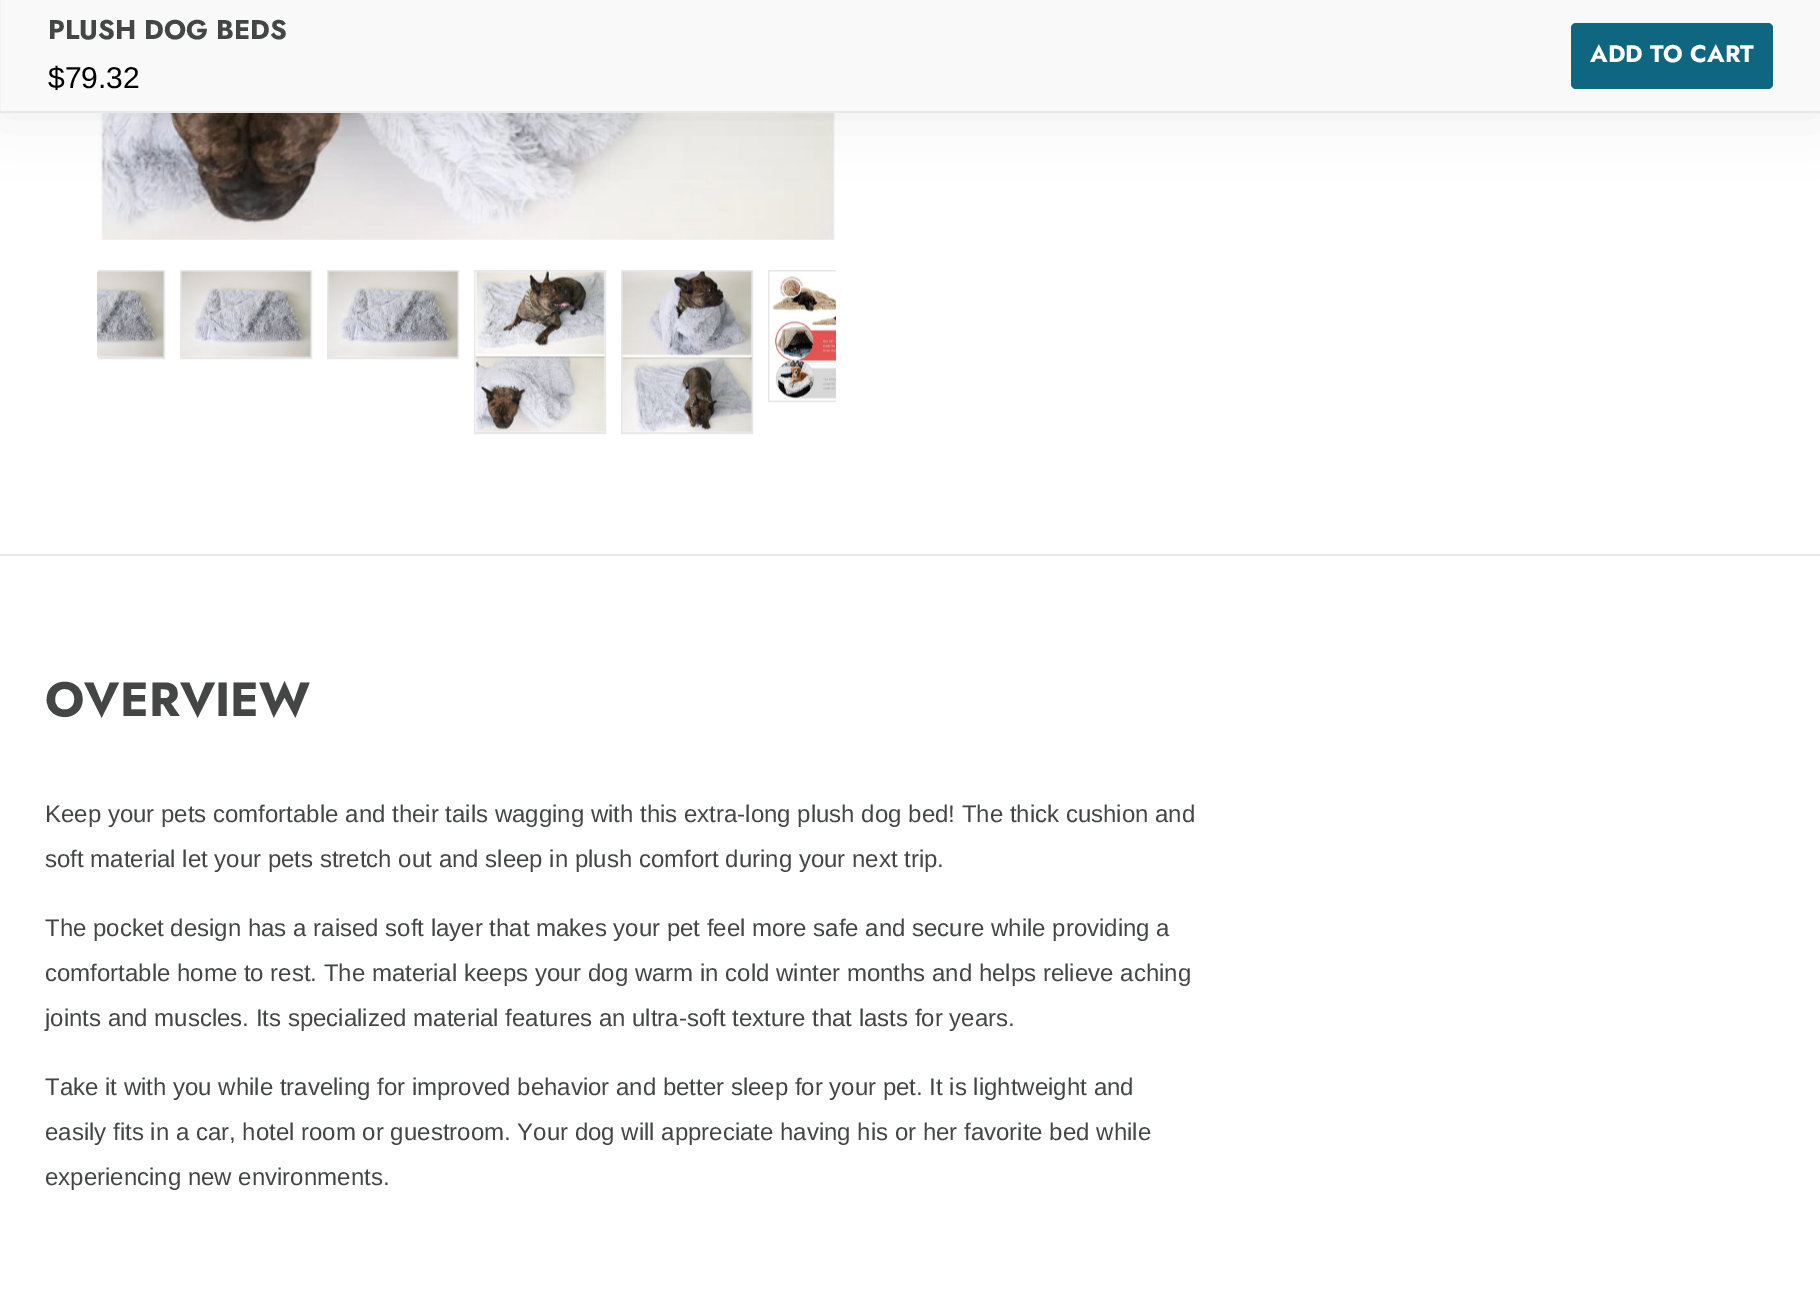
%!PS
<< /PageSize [1820 1315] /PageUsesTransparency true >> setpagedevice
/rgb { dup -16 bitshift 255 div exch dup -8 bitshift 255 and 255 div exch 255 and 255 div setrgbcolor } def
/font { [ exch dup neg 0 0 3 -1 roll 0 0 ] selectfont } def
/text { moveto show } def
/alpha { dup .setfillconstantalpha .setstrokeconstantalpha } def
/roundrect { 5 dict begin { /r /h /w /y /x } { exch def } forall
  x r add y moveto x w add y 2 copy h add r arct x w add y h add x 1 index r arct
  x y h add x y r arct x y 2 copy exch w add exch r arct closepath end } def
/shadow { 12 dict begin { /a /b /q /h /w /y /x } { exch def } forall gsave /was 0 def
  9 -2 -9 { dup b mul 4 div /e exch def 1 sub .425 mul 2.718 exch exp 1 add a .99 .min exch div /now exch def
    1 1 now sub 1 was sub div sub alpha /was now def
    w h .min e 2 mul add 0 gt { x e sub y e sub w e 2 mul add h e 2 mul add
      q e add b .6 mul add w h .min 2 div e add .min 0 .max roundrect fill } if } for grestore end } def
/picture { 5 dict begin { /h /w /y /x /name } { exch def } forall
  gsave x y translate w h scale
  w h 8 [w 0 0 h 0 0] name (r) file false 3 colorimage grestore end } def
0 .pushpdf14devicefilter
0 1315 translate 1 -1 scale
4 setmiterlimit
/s1 { /Jost-Bold 27 font 16#444545 rgb } def
/s2 { /LiberationSans-Regular 30 font 16#000000 rgb } def
/s3 { /Jost-Bold 24 font 16#FFFFFF rgb } def
/s4 { /Jost-Bold 48 font 16#444545 rgb } def
/s5 { /LiberationSans-Regular 24 font 16#444545 rgb } def
16#FFFFFF rgb
0 0 1820 1315 rectfill
(pic1.raw) 98 113 738 127 picture
16#000000 rgb
0 0 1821 113 0 30 0.07 shadow
16#F9F9F9 rgb
1 0 1819 111 rectfill
16#E8E8E8 rgb
0 111 1820 2 rectfill
s1
(PLUSH DOG BEDS) 48 39 text
s2
($79.32) 48 88 text
16#0F6681 rgb
1571 23 202 66 5 roundrect fill
s3
(ADD TO CART) 1590 62 text
gsave
98 270 738 164 rectclip
16#E8E8E8 rgb
2 setlinewidth
34 271 130 87 rectstroke
grestore
(pic2.raw) 97 271 67 87 picture
16#E8E8E8 rgb
2 setlinewidth
181 271 130 87 rectstroke
(pic3.raw) 181 271 130 87 picture
328 271 130 87 rectstroke
(pic3.raw) 328 271 130 87 picture
475 271 130 162 rectstroke
(pic4.raw) 475 271 130 161 picture
622 271 130 162 rectstroke
(pic5.raw) 622 271 130 162 picture
gsave
98 270 738 164 rectclip
769 271 130 130 rectstroke
grestore
(pic6.raw) 769 271 67 130 picture
0 554 1820 2 rectfill
s4
(OVERVIEW) 45 716 text
s5
(Keep your pets comfortable and their tails wagging with this extra-long plush dog bed! The thick cushion and) 45 822 text
(soft material let your pets stretch out and sleep in plush comfort during your next trip.) 45 867 text
(The pocket design has a raised soft layer that makes your pet feel more safe and secure while providing a) 45 936 text
(comfortable home to rest. The material keeps your dog warm in cold winter months and helps relieve aching) 45 981 text
(joints and muscles. Its specialized material features an ultra-soft texture that lasts for years.) 45 1026 text
(Take it with you while traveling for improved behavior and better sleep for your pet. It is lightweight and) 45 1095 text
(easily fits in a car, hotel room or guestroom. Your dog will appreciate having his or her favorite bed while) 45 1140 text
(experiencing new environments.) 45 1185 text
.poppdf14devicefilter showpage
